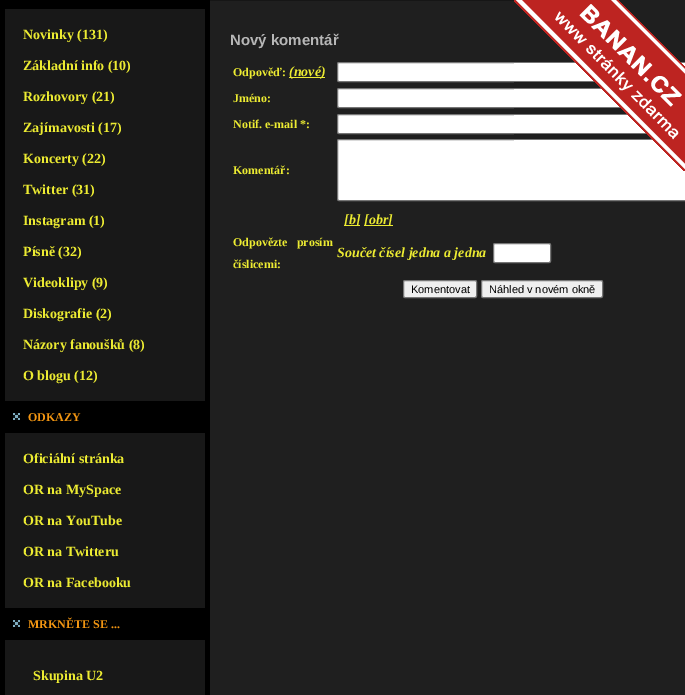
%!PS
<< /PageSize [685 695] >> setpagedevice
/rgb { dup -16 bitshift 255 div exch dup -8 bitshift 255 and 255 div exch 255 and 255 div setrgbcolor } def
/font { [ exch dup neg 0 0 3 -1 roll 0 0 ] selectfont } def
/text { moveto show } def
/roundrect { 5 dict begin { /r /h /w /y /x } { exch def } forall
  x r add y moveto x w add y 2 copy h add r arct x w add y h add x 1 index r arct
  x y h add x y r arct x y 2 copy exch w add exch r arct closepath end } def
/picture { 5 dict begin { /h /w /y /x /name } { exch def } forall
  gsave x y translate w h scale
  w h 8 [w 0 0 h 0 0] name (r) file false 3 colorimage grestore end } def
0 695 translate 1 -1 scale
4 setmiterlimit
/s1 { /LiberationSerif-Bold 14 font 16#ECEB32 rgb } def
/s2 { /LiberationSerif-Bold 12 font 16#F39612 rgb } def
/s3 { /LiberationSans-Bold 15 font 16#B7B7B7 rgb } def
/s4 { /LiberationSerif-Bold 12 font 16#ECEB32 rgb } def
/s5 { /LiberationSerif-BoldItalic 14 font 16#ECEB32 rgb } def
/s6 { /LiberationSans-Regular 11 font 16#000000 rgb } def
16#1F1F1F rgb
0 0 685 695 rectfill
16#000000 rgb
205 0 5 695 rectfill
5 setlinewidth
2.5 -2.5 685 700 rectstroke
16#181818 rgb
5 9 200 686 rectfill
16#000000 rgb
5 0 200 9 rectfill
s1
(Novinky \(131\)) 23 39 text
(Základní info \(10\)) 23 70 text
(Rozhovory \(21\)) 23 101 text
(Zajímavosti \(17\)) 23 132 text
(Koncerty \(22\)) 23 163 text
(Twitter \(31\)) 23 194 text
(Instagram \(1\)) 23 225 text
(Písně \(32\)) 23 256 text
(Videoklipy \(9\)) 23 287 text
(Diskografie \(2\)) 23 318 text
(Názory fanoušků \(8\)) 23 349 text
(O blogu \(12\)) 23 380 text
16#000000 rgb
5 401 200 32 rectfill
(pic1.raw) 13 413 7 7 picture
s2
(ODKAZY) 28 421 text
s1
(Oficiální stránka) 23 463 text
(OR na MySpace) 23 494 text
(OR na YouTube) 23 525 text
(OR na Twitteru) 23 556 text
(OR na Facebooku) 23 587 text
16#000000 rgb
5 608 200 32 rectfill
(pic1.raw) 13 620 7 7 picture
s2
(MRKNĚTE SE ...) 28 628 text
s1
(Skupina U2) 33 680 text
s3
(Nový komentář) 230 45 text
s4
(Odpověď:) 233 76 text
289 77 36 1 rectfill
s5
(\(nové\)) 289 76 text
16#FFFFFF rgb
337.5 62.5 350 19 1.5 roundrect gsave fill grestore
16#767676 rgb
1 setlinewidth
stroke
s4
(Jméno:) 233 102 text
16#FFFFFF rgb
337.5 88.5 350 19 1.5 roundrect gsave fill grestore
16#767676 rgb
stroke
s4
(Notif. e-mail *:) 233 128 text
16#FFFFFF rgb
337.5 114.5 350 19 1.5 roundrect gsave fill grestore
16#767676 rgb
stroke
s4
(Komentář:) 233 174 text
16#FFFFFF rgb
337.5 139.5 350 61 1.5 roundrect gsave fill grestore
16#767676 rgb
stroke
16#ECEB32 rgb
344 225 16 1 rectfill
s5
([b]) 344 224 text
364 225 29 1 rectfill
([obr]) 364 224 text
/LiberationSerif-Bold 12 font
233 246 moveto 6 0 32 (Odpovězte prosím) widthshow
(číslicemi:) 233 268 text
s5
(Součet čísel jedna a jedna) 337 257 text
16#FFFFFF rgb
493.5 243.5 57 19 1.5 roundrect gsave fill grestore
16#767676 rgb
stroke
16#EFEFEF rgb
403.5 280.5 73 17 1.5 roundrect gsave fill grestore
16#767676 rgb
stroke
s6
(Komentovat) 411 293 text
16#EFEFEF rgb
481.5 280.5 121 17 1.5 roundrect gsave fill grestore
16#767676 rgb
stroke
s6
(Náhled v novém okně) 489 293 text
(pic2.raw) 514 0 171 171 picture
showpage
